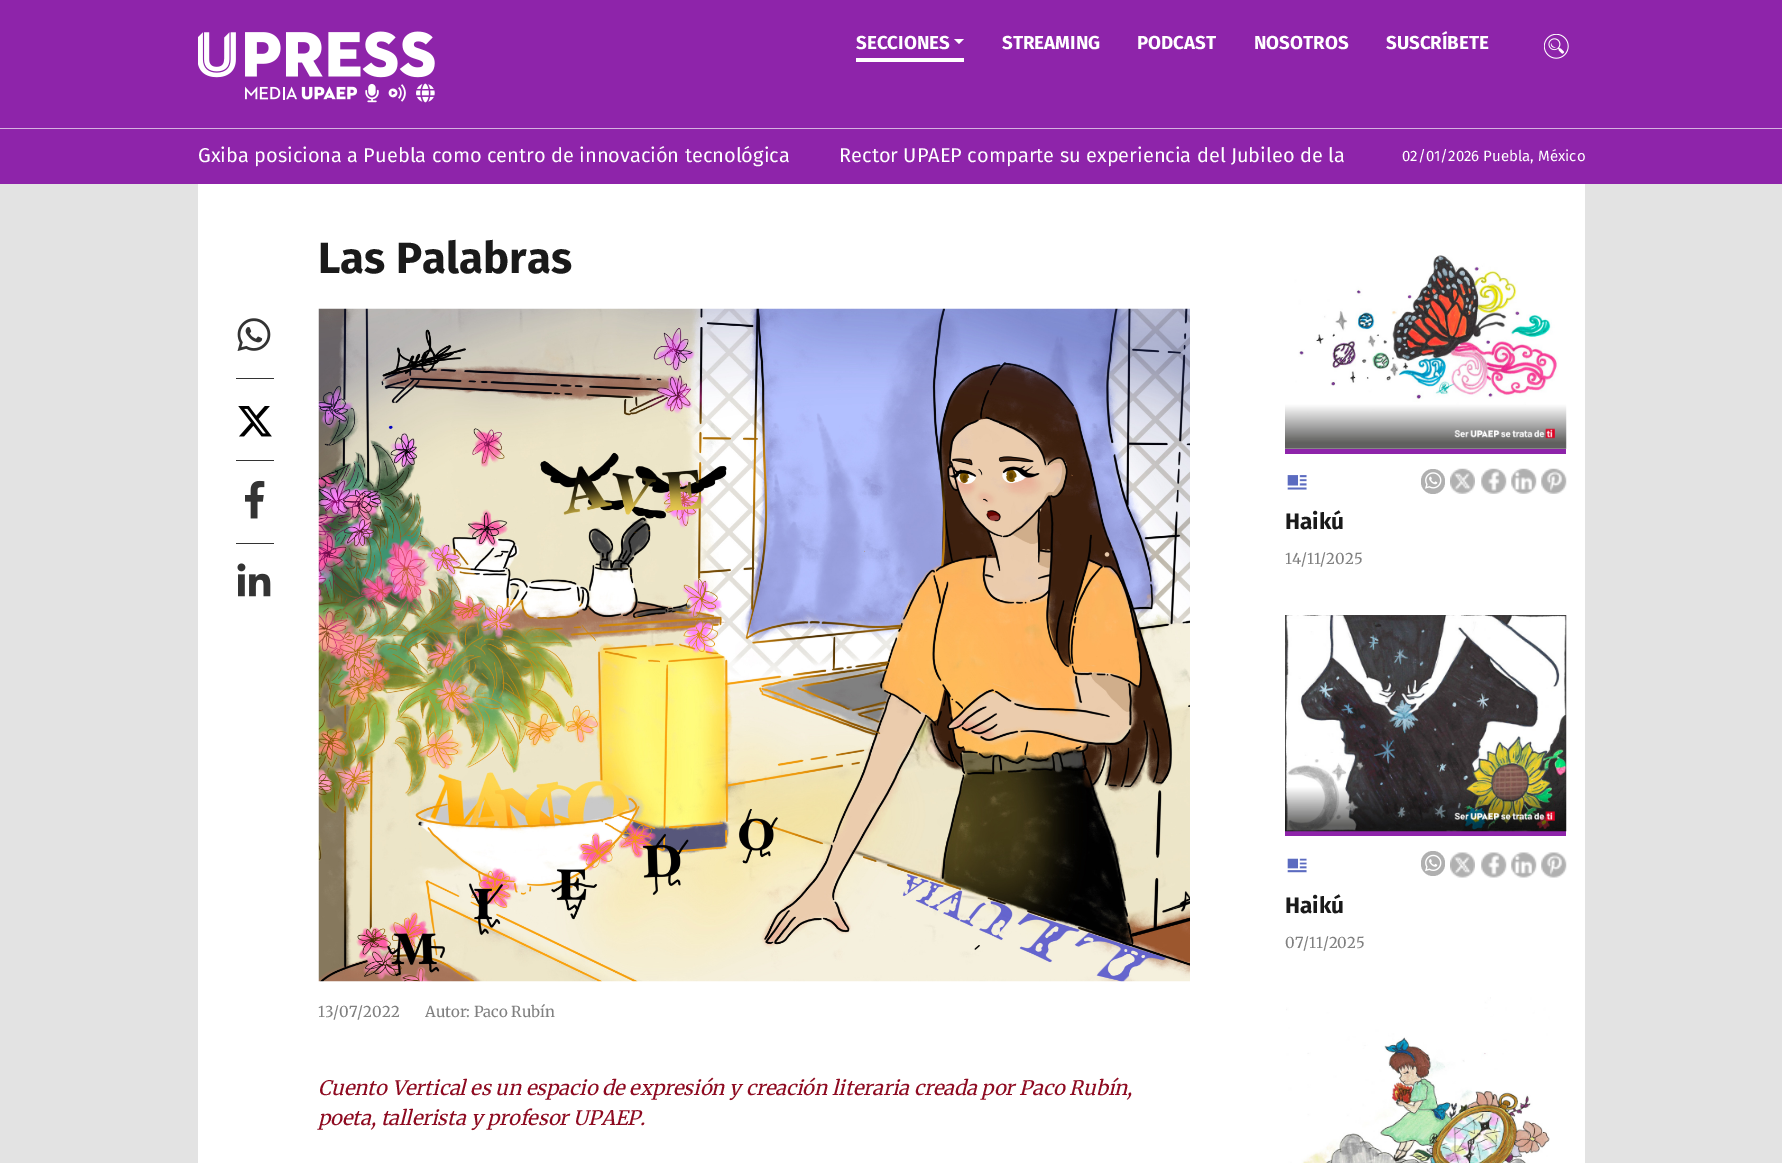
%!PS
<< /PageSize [1782 1163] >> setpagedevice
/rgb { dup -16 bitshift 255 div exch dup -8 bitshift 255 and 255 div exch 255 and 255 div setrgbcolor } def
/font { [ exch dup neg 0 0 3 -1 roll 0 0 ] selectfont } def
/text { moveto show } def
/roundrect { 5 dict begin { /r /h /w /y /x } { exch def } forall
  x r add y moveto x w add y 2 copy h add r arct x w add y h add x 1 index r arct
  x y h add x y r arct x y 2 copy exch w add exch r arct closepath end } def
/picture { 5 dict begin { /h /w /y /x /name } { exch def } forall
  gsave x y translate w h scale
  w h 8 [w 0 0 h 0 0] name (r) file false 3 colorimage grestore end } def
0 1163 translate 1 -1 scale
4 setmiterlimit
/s1 { /FiraSans-Bold 18.75 font 16#FFFFFF rgb } def
/s2 { /FiraSans-Regular 20 font 16#FFFFFF rgb } def
/s3 { /FiraSans-Regular 15 font 16#FFFFFF rgb } def
/s4 { /FiraSans-Bold 43.75 font 16#1A1A1A rgb } def
/s5 { /Merriweather-Regular 15 font 16#808080 rgb } def
/s6 { /Merriweather-Italic 20 font 16#8E0A20 rgb } def
/s7 { /FiraSans-Bold 22.5 font 16#1A1A1A rgb } def
16#E3E3E3 rgb
0 0 1782 1163 rectfill
16#8E24AA rgb
0 0 1782 184 rectfill
(pic1.raw) 198 31 237 72 picture
16#FFFFFF rgb
856 58 108 4 rectfill
s1
(SECCIONES) 856 49 text
954 39 moveto 964 39 lineto 959 44 lineto closepath fill
(STREAMING) 1002 49 text
(PODCAST) 1137 49 text
(NOSOTROS) 1254 49 text
(SUSCRÍBETE) 1386 49 text
(pic2.raw) 1544 34 25 25 picture
16#D7B2E1 rgb
0 128 1782 1 rectfill
s2
(Gxiba posiciona a Puebla como centro de innovación tecnológica) 198 162 text
(Rector UPAEP comparte su experiencia del Jubileo de la) 839 162 text
s3
(02/01/2026 Puebla, México) 1402 161 text
198 184 1387 979 rectfill
s4
(Las Palabras) 318 273 text
(pic3.raw) 237 318 34 33 picture
16#333333 rgb
236 378 38 1 rectfill
(pic4.raw) 238 406 34 31 picture
236 460 38 1 rectfill
(pic5.raw) 245 480 20 39 picture
236 543 38 1 rectfill
(pic6.raw) 237 563 34 34 picture
(pic7.raw) 318 308 872 674 picture
s5
(13/07/2022) 318 1017 text
(Autor: Paco Rubín) 425 1017 text
s6
(Cuento Vertical es un espacio de expresión y creación literaria creada por Paco Rubín,) 318 1095 text
(poeta, tallerista y profesor UPAEP.) 318 1125 text
(pic8.raw) 1285 255 282 194 picture
16#8E24AA rgb
1285 449 281 5 rectfill
(pic9.raw) 1287 475 20 15 picture
16#B0B0B0 rgb
1421 469 24 25 12 roundrect fill
(pic10.raw) 1425 472 17 17 picture
(pic11.raw) 1450 468 25 26 picture
(pic12.raw) 1481 468 26 26 picture
(pic13.raw) 1511 468 26 26 picture
(pic14.raw) 1541 468 26 26 picture
s7
(Haikú) 1285 529 text
s5
(14/11/2025) 1285 564 text
16#8E24AA rgb
1285 831 281 5 rectfill
(pic15.raw) 1285 615 282 217 picture
(pic16.raw) 1287 858 20 15 picture
16#B0B0B0 rgb
1421 851 24 25 12 roundrect fill
(pic17.raw) 1425 854 17 18 picture
(pic18.raw) 1450 852 25 26 picture
(pic19.raw) 1481 852 26 26 picture
(pic20.raw) 1511 852 26 26 picture
(pic21.raw) 1541 852 26 26 picture
s7
(Haikú) 1285 913 text
s5
(07/11/2025) 1285 948 text
(pic22.raw) 1286 997 264 166 picture
showpage
